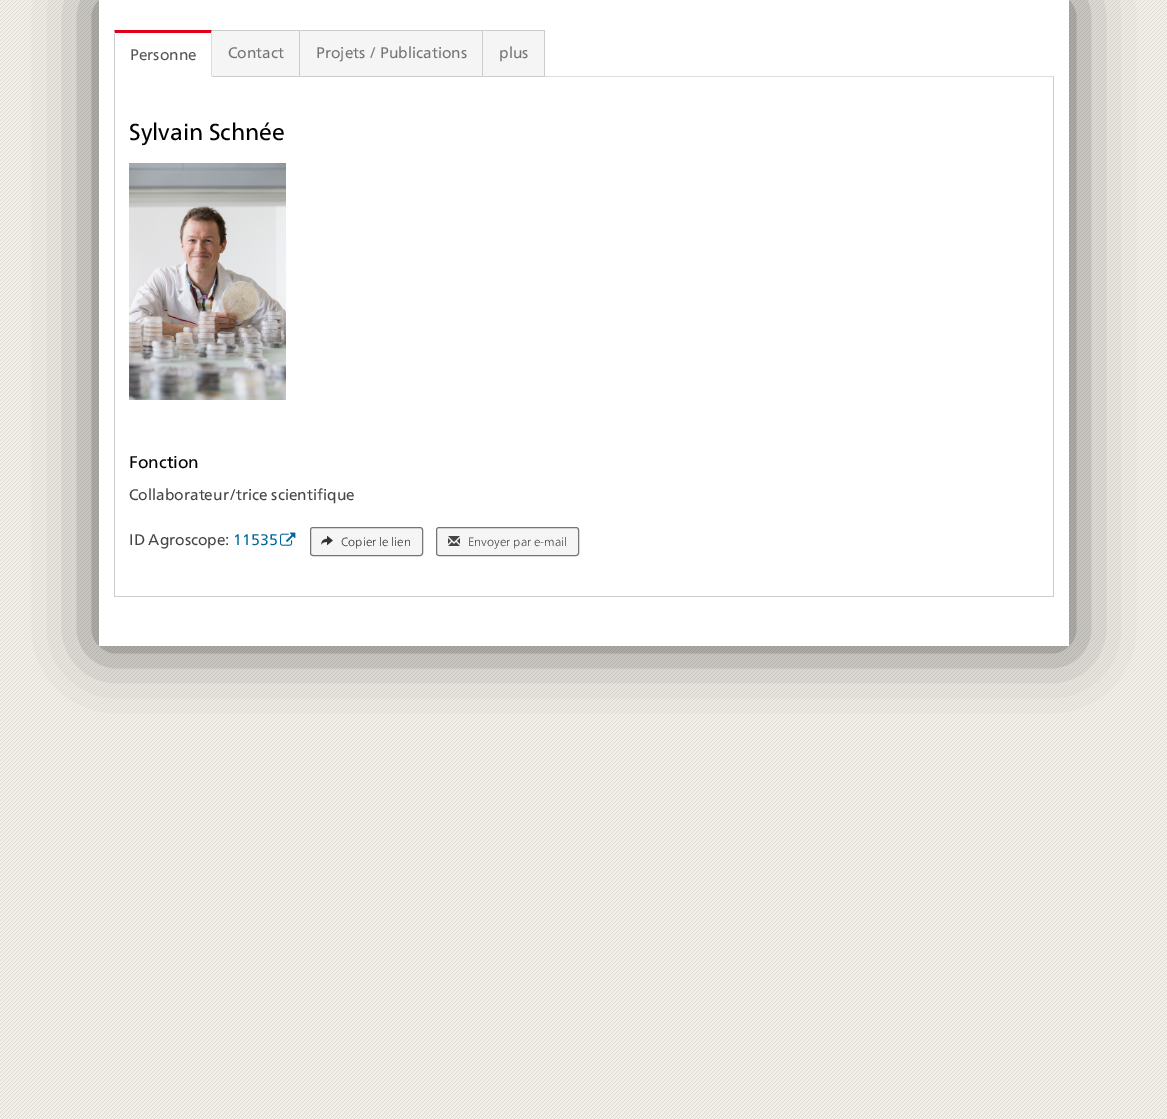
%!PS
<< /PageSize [1167 1119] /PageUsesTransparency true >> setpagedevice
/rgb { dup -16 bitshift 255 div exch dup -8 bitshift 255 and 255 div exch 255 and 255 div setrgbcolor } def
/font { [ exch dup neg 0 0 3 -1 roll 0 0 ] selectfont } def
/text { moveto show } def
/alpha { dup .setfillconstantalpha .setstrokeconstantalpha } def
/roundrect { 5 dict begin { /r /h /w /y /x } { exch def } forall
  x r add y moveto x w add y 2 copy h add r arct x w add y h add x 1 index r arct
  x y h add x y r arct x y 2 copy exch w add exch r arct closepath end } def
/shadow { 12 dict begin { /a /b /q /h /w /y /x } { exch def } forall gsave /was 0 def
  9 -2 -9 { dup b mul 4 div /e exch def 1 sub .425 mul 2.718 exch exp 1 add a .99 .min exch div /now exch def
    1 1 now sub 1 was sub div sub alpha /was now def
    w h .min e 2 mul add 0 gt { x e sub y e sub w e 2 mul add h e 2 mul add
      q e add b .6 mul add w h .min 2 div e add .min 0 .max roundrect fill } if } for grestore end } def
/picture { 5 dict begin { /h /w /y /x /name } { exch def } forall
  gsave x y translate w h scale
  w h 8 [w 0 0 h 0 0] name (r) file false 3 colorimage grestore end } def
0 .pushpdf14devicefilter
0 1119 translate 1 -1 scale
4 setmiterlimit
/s1 { /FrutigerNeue-Regular 15.4 font 16#555555 rgb } def
/s2 { /FrutigerNeue-Regular 15.4 font 16#757575 rgb } def
/s3 { /FrutigerNeue-Regular 23 font 16#000000 rgb } def
/s4 { /FrutigerNeue-Regular 17 font 16#000000 rgb } def
/s5 { /FrutigerNeue-Regular 15.4 font 16#454545 rgb } def
/s6 { /FrutigerNeue-Regular 15.4 font 16#006699 rgb } def
/s7 { /FrutigerNeue-Light 12 font 16#333333 rgb } def
/s8 { /FrutigerNeue-Light 12 font 16#454545 rgb } def
16#FFFFFF rgb
0 0 1167 1119 rectfill
(pic1.raw) 0 0 1167 1119 picture
16#000000 rgb
99 0 970 646 0 30 0.6 shadow
16#FFFFFF rgb
99 0 970 646 rectfill
16#DDDDDD rgb
545 76 509 1 rectfill
16#DC0018 rgb
114 30 moveto 212 30 lineto 211 33 lineto 115 33 lineto closepath fill
16#DDDDDD rgb
212 30 moveto 212 77 lineto 211 76 lineto 211 33 lineto closepath fill
16#CCCCCC rgb
114 77 moveto 114 30 lineto 115 33 lineto 115 76 lineto closepath fill
s1
(Personne) 130 60 text
16#F5F5F5 rgb
212 30 87 47 rectfill
16#CCCCCC rgb
212 30 moveto 300 30 lineto 299 31 lineto 213 31 lineto closepath fill
299 30 1 47 rectfill
300 77 moveto 212 77 lineto 213 76 lineto 299 76 lineto closepath fill
s2
(Contact) 228 58 text
16#F5F5F5 rgb
300 30 182 47 rectfill
16#CCCCCC rgb
300 30 moveto 483 30 lineto 482 31 lineto 301 31 lineto closepath fill
482 30 1 47 rectfill
483 77 moveto 300 77 lineto 301 76 lineto 482 76 lineto closepath fill
s2
(Projets / Publications) 316 58 text
16#F5F5F5 rgb
483 30 61 47 rectfill
16#CCCCCC rgb
483 30 moveto 545 30 lineto 544 31 lineto 484 31 lineto closepath fill
544 30 1 47 rectfill
545 77 moveto 483 77 lineto 484 76 lineto 544 76 lineto closepath fill
s2
(plus) 499 58 text
16#CCCCCC rgb
1053 77 1 520 rectfill
114 596 940 1 rectfill
114 77 1 520 rectfill
s3
(Sylvain Schnée) 129 140 text
(pic2.raw) 129 163 157 237 picture
s4
(Fonction) 129 468 text
s5
(Collaborateur/trice scientifique) 129 500 text
(ID Agroscope:) 129 545 text
s6
(11535) 233 545 text
(pic3.raw) 280 532 16 14 picture
16#F5F5F5 rgb
310.5 527.5 112 28 2.5 roundrect gsave fill grestore
16#757575 rgb
stroke
(pic4.raw) 321 535 12 11 picture
s7
(Copier le lien) 341 546 text
16#F5F5F5 rgb
436.5 527.5 142 28 2.5 roundrect gsave fill grestore
16#757575 rgb
stroke
(pic5.raw) 448 536 12 10 picture
s8
(Envoyer par e-mail) 468 546 text
.poppdf14devicefilter showpage
